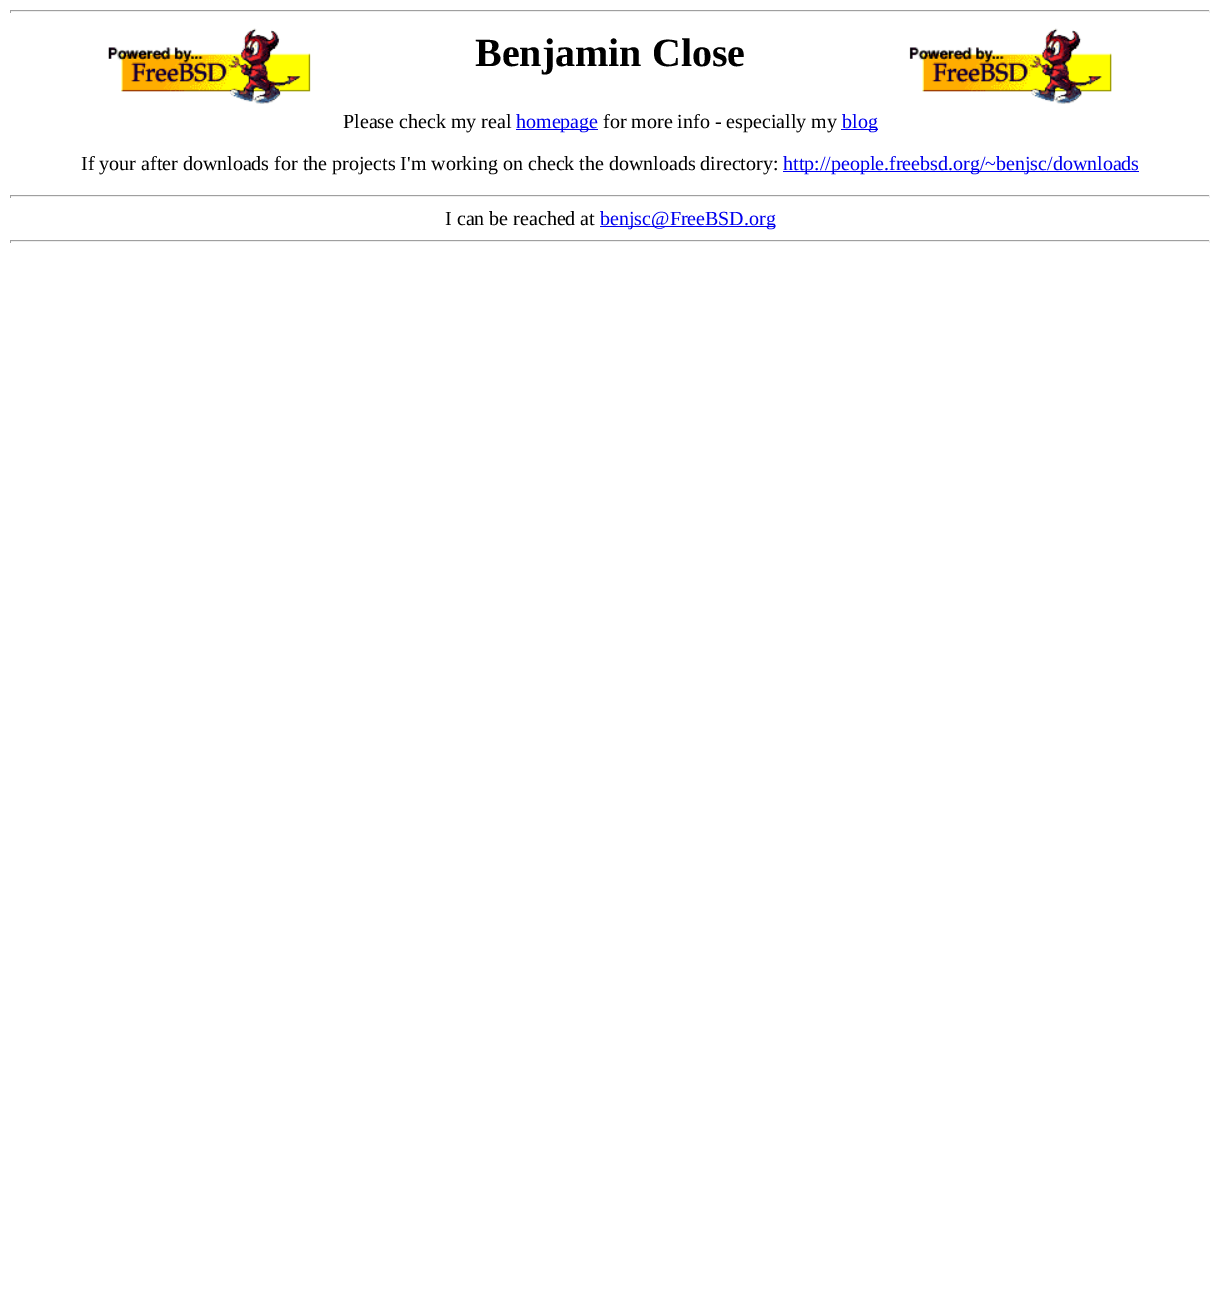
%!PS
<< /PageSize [1219 1290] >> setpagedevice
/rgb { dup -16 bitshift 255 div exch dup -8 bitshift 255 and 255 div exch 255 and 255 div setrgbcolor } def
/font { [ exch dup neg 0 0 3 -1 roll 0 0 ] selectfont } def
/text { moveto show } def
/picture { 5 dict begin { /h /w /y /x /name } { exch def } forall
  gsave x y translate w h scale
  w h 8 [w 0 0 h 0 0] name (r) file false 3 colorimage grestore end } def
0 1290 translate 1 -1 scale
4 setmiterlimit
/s1 { /LiberationSerif-Bold 40 font 16#000000 rgb } def
/s2 { /LiberationSerif-Regular 20 font 16#000000 rgb } def
/s3 { /LiberationSerif-Regular 20 font 16#0000EE rgb } def
16#FFFFFF rgb
0 0 1219 1290 rectfill
16#9F9F9F rgb
10 10 1200 1 rectfill
16#EEEEEE rgb
1209 10 1 3 rectfill
10 11 1200 1 rectfill
16#9F9F9F rgb
10 10 1 3 rectfill
(pic1.raw) 108 28 203 76 picture
s1
(Benjamin Close) 475 66 text
(pic2.raw) 909 28 203 76 picture
s2
(Please check my real) 343 128 text
16#0000EE rgb
516 129 82 1 rectfill
(homepage) 516 128 text
s2
(for more info - especially my) 603 128 text
16#0000EE rgb
841 129 37 1 rectfill
(blog) 842 128 text
s2
(If your after downloads for the projects I'm working on check the downloads directory:) 81 170 text
16#0000EE rgb
783 171 356 1 rectfill
(http://people.freebsd.org/~benjsc/downloads) 783 170 text
16#9F9F9F rgb
10 195 1200 1 rectfill
16#EEEEEE rgb
1209 195 1 3 rectfill
10 196 1200 1 rectfill
16#9F9F9F rgb
10 195 1 3 rectfill
s2
(I can be reached at) 445 225 text
16#0000EE rgb
600 226 175 1 rectfill
(benjsc@FreeBSD.org) 600 225 text
16#9F9F9F rgb
10 240 1200 1 rectfill
16#EEEEEE rgb
1209 240 1 3 rectfill
10 241 1200 1 rectfill
16#9F9F9F rgb
10 240 1 3 rectfill
showpage
